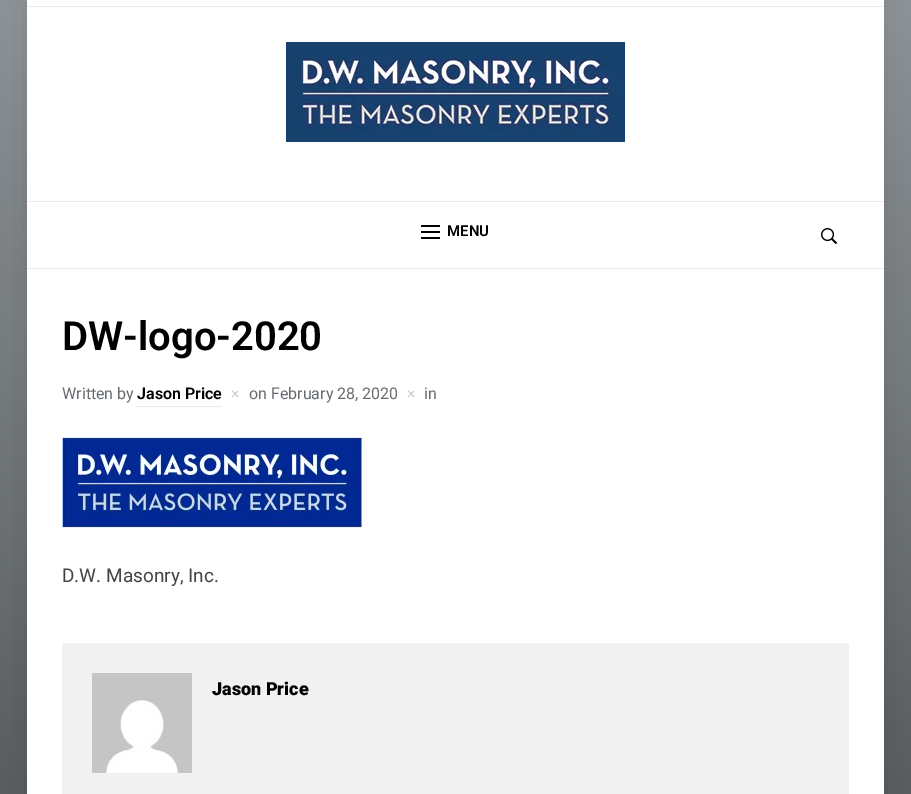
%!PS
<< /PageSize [911 794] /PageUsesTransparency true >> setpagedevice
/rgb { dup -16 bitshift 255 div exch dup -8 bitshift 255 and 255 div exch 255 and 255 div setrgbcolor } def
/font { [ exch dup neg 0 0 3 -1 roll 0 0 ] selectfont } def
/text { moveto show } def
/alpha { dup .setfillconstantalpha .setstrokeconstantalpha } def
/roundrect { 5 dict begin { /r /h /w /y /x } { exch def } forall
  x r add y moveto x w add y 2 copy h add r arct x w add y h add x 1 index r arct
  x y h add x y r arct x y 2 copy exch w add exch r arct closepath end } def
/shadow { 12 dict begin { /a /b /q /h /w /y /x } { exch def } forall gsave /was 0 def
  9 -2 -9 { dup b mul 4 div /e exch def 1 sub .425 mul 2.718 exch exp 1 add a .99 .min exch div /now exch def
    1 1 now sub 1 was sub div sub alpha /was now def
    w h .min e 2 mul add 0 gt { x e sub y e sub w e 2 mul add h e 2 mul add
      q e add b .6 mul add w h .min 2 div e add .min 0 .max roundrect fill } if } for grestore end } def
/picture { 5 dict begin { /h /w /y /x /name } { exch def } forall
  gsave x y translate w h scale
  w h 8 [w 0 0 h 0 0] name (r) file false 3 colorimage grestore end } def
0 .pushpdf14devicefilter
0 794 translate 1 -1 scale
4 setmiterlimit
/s1 { /Roboto-SemiBold 15 font 16#000000 rgb } def
/s2 { /Roboto-SemiBold 40 font 16#000000 rgb } def
/s3 { /Roboto-Regular 16 font 16#676C71 rgb } def
/s4 { /Roboto-SemiBold 16 font 16#000000 rgb } def
/s5 { /Roboto-Regular 16 font 16#CCCFCF rgb } def
/s6 { /Roboto-Regular 19 font 16#444444 rgb } def
/s7 { /Roboto-Black 18 font 16#000000 rgb } def
16#FFFFFF rgb
0 0 911 794 rectfill
gsave 0 0 moveto 911 0 lineto 911 794 lineto 0 794 lineto closepath clip newpath
<< /ShadingType 2 /ColorSpace /DeviceRGB /Coords [455 0 456 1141] /Extend [true true] /Function << /FunctionType 2 /Domain [0 1] /C0 [0.561 0.584 0.6] /C1 [0.259 0.267 0.278] /N 1 >> >> shfill grestore
16#000000 rgb
27 0 857 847 0 17.5 0.1 shadow
16#FFFFFF rgb
27 0 857 794 rectfill
16#EBEBEB rgb
27 6 857 1 rectfill
(pic1.raw) 286 42 339 100 picture
27 201 857 1 rectfill
27 268 857 1 rectfill
16#000000 rgb
421 225 19 2 rectfill
421 231 19 2 rectfill
421 237 19 2 rectfill
s1
(MENU) 447 236 text
(pic2.raw) 821 228 16 16 picture
s2
(DW-logo-2020) 62 350 text
s3
(Written by) 62 399 text
16#E8E8E8 rgb
137 406 85 1 rectfill
s4
(Jason Price) 137 399 text
s5
(×) 231 399 text
s3
(on February 28, 2020) 249 399 text
s5
(×) 407 399 text
s3
(in) 424 399 text
(pic3.raw) 62 437 300 91 picture
s6
(D.W. Masonry, Inc.) 62 582 text
16#F1F1F1 rgb
62 643 787 151 rectfill
(pic4.raw) 92 673 100 100 picture
s7
(Jason Price) 212 695 text
.poppdf14devicefilter showpage
